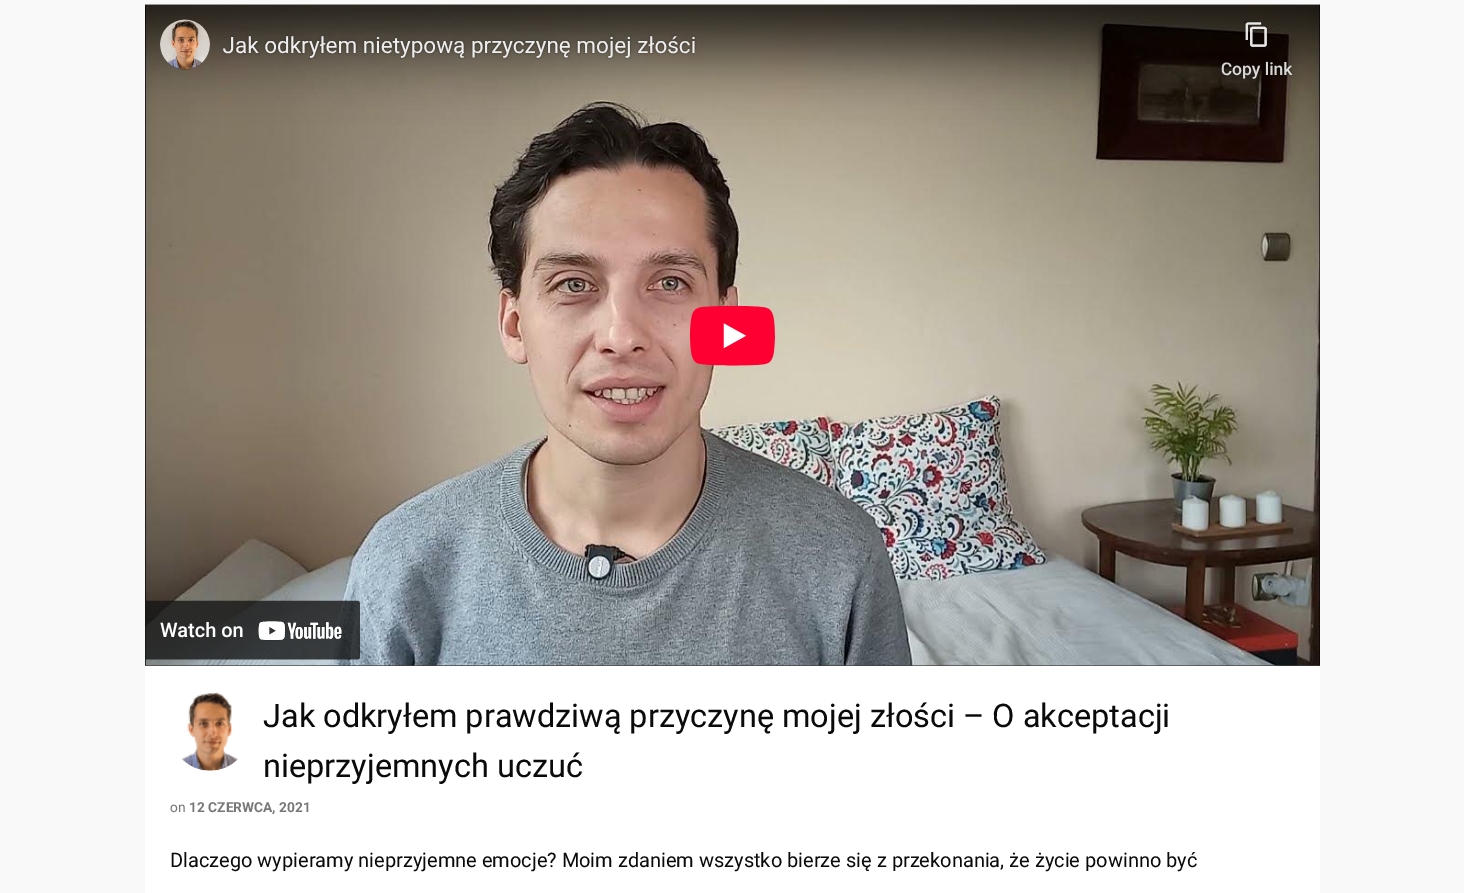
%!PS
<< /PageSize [1464 893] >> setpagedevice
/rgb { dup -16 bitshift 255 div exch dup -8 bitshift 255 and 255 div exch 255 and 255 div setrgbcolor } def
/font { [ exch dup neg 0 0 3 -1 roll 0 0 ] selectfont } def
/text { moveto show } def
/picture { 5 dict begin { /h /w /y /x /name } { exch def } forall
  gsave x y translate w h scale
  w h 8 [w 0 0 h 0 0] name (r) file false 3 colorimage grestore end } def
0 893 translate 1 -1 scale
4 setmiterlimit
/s1 { /Roboto-Regular 32.5 font 16#0A0A0A rgb } def
/s2 { /Roboto-Regular 13.75 font 16#777777 rgb } def
/s3 { /Roboto-Bold 13.75 font 16#777777 rgb } def
/s4 { /Roboto-Regular 20 font 16#0A0A0A rgb } def
16#F9F9F9 rgb
0 0 1464 893 rectfill
16#FFFFFF rgb
145 665 1175 228 rectfill
(pic1.raw) 145 4 1175 662 picture
(pic2.raw) 181 692 57 79 picture
s1
(Jak odkryłem prawdziwą przyczynę mojej złości – O akceptacji) 263 727 text
(nieprzyjemnych uczuć) 263 777 text
s2
(on) 170 812 text
s3
(12 CZERWCA, 2021) 189 812 text
s4
(Dlaczego wypieramy nieprzyjemne emocje? Moim zdaniem wszystko bierze się z przekonania, że życie powinno być) 170 867 text
showpage
